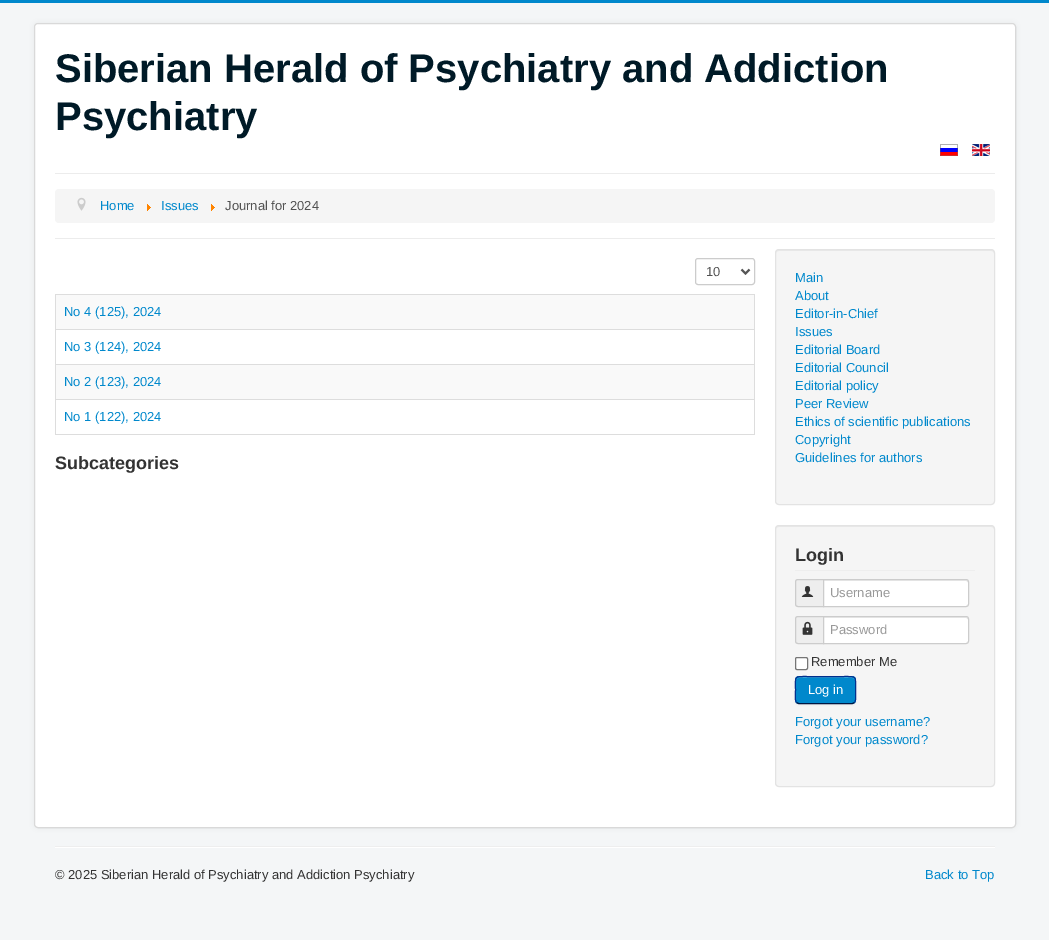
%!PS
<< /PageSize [1049 940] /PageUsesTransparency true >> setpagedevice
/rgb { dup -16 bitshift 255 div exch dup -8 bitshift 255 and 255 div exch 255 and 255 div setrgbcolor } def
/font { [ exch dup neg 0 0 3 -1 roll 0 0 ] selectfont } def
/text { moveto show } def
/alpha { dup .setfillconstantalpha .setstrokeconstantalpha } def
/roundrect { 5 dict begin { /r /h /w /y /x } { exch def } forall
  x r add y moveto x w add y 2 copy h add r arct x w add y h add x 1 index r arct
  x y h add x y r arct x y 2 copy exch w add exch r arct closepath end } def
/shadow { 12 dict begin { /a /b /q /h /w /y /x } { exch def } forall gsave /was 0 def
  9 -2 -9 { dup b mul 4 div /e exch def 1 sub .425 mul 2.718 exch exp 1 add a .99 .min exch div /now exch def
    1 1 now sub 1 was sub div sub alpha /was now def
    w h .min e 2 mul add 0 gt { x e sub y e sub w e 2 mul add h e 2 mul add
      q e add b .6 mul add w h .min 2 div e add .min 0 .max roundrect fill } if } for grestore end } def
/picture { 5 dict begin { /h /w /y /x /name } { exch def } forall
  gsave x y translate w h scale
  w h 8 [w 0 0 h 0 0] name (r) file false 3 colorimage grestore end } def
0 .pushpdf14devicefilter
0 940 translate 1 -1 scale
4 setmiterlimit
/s1 { /LiberationSans-Bold 40 font 16#001A27 rgb } def
/s2 { /LiberationSans-Regular 13 font 16#0088CC rgb } def
/s3 { /LiberationSans-Regular 13 font 16#515151 rgb } def
/s4 { /LiberationSans-Bold 18 font 16#333333 rgb } def
/s5 { /LiberationSans-Regular 13 font 16#999999 rgb } def
/s6 { /LiberationSans-Regular 13 font 16#333333 rgb } def
/s7 { /LiberationSans-Regular 13 font 16#FFFFFF rgb } def
16#F4F6F7 rgb
0 0 1049 940 rectfill
16#0088CC rgb
0 0 1049 3 rectfill
16#000000 rgb
34 23 982 805 4 3 0.05 shadow
16#FFFFFF rgb
34 23 982 805 4 roundrect fill
0.15 alpha
16#000000 rgb
34.5 23.5 981 804 3.5 roundrect stroke
1 alpha
s1
(Siberian Herald of Psychiatry and Addiction) 55 82 text
(Psychiatry) 55 130 text
(pic1.raw) 940 144 18 12 picture
(pic2.raw) 972 144 18 12 picture
16#ECECEC rgb
55 173 940 1 rectfill
55 238 940 1 rectfill
16#F5F5F5 rgb
55 189 940 34 4 roundrect fill
(pic3.raw) 77 197 9 14 picture
s2
(Home) 100 210 text
(pic4.raw) 147 204 4 7 picture
(Issues) 161 210 text
(pic4.raw) 211 204 4 7 picture
s3
(Journal for 2024) 225 210 text
16#CCCCCC rgb
695.5 258.5 59 26 2.5 roundrect stroke
16#555555 rgb
2 setlinewidth
741.5 269.5 moveto 745.5 273.5 lineto 749.5 269.5 lineto stroke
s3
(10) 706 276 text
16#DDDDDD rgb
55 294 700 1 rectfill
754 294 1 141 rectfill
55 434 700 1 rectfill
16#F9F9F9 rgb
56 295 698 34 rectfill
s2
(No 4 \(125\), 2024) 64 316 text
16#DDDDDD rgb
55 329 700 1 rectfill
55 364 700 1 rectfill
55 399 700 1 rectfill
55 399 1 36 rectfill
55 364 1 36 rectfill
55 294 1 71 rectfill
s2
(No 3 \(124\), 2024) 64 351 text
16#F9F9F9 rgb
56 365 698 34 rectfill
s2
(No 2 \(123\), 2024) 64 386 text
(No 1 \(122\), 2024) 64 421 text
s4
(Subcategories) 55 469 text
16#F5F5F5 rgb
775 249 220 256 4 roundrect fill
16#E9E9E9 rgb
779 251 moveto 991 251 lineto 993 251 994 252 994 254 curveto 994 253 lineto 994 251 993 250 991 250 curveto 779 250 lineto 777 250 776 251 776 253 curveto 776 254 lineto 776 252 777 251 779 251 curveto closepath fill
16#E3E3E3 rgb
1 setlinewidth
775.5 249.5 219 255 3.5 roundrect stroke
s2
(Main) 795 282 text
(About) 795 300 text
(Editor-in-Chief) 795 318 text
(Issues) 795 336 text
(Editorial Board) 795 354 text
(Editorial Council) 795 372 text
(Editorial policy) 795 390 text
(Peer Review) 795 408 text
(Ethics of scientific publications) 795 426 text
(Copyright) 795 444 text
(Guidelines for authors) 795 462 text
16#F5F5F5 rgb
775 525 220 262 4 roundrect fill
16#E9E9E9 rgb
779 527 moveto 991 527 lineto 993 527 994 528 994 530 curveto 994 529 lineto 994 527 993 526 991 526 curveto 779 526 lineto 777 526 776 527 776 529 curveto 776 530 lineto 776 528 777 527 779 527 curveto closepath fill
16#E3E3E3 rgb
775.5 525.5 219 261 3.5 roundrect stroke
16#EEEEEE rgb
795 570 180 1 rectfill
s4
(Login) 795 561 text
16#EEEEEE rgb
798 579.5 moveto 823.5 579.5 lineto 823.5 606.5 lineto 798 606.5 lineto 796.5 606.5 795.5 605.5 795.5 604 curveto 795.5 582 lineto 795.5 580.5 796.5 579.5 798 579.5 curveto closepath gsave fill grestore
16#CCCCCC rgb
stroke
(pic5.raw) 801 586 13 11 picture
16#FFFFFF rgb
823 579 moveto 966 579 lineto 967.5 579 969 580.5 969 582 curveto 969 604 lineto 969 605.5 967.5 607 966 607 curveto 823 607 lineto closepath fill
16#ECECEC rgb
824 581 moveto 966 581 lineto 967 581 968 582 968 583 curveto 968 582 968 580 966 580 curveto 824 580 lineto closepath fill
16#CCCCCC rgb
823.5 579.5 moveto 966 579.5 lineto 967.5 579.5 968.5 580.5 968.5 582 curveto 968.5 604 lineto 968.5 605.5 967.5 606.5 966 606.5 curveto 823.5 606.5 lineto closepath stroke
s5
(Username) 830 597 text
16#EEEEEE rgb
798 616.5 moveto 823.5 616.5 lineto 823.5 643.5 lineto 798 643.5 lineto 796.5 643.5 795.5 642.5 795.5 641 curveto 795.5 619 lineto 795.5 617.5 796.5 616.5 798 616.5 curveto closepath gsave fill grestore
16#CCCCCC rgb
stroke
(pic6.raw) 802 621 11 14 picture
16#FFFFFF rgb
823 616 moveto 966 616 lineto 967.5 616 969 617.5 969 619 curveto 969 641 lineto 969 642.5 967.5 644 966 644 curveto 823 644 lineto closepath fill
16#ECECEC rgb
824 618 moveto 966 618 lineto 967 618 968 619 968 620 curveto 968 619 968 617 966 617 curveto 824 617 lineto closepath fill
16#CCCCCC rgb
823.5 616.5 moveto 966 616.5 lineto 967.5 616.5 968.5 617.5 968.5 619 curveto 968.5 641 lineto 968.5 642.5 967.5 643.5 966 643.5 curveto 823.5 643.5 lineto closepath stroke
s5
(Password) 830 634 text
16#FFFFFF rgb
795.5 657.5 12 12 1.5 roundrect gsave fill grestore
16#767676 rgb
stroke
s6
(Remember Me) 811 666 text
16#000000 rgb
795 677 61 28 4 1 0.05 shadow
16#0088CC rgb
795 676 61 28 4 roundrect fill
16#33A0D6 rgb
799 678 moveto 852 678 lineto 854 678 855 679 855 681 curveto 855 675 848 677 843 677 curveto 808 677 lineto 803 677 796 675 796 681 curveto 796 679 797 678 799 678 curveto closepath fill
16#001641 rgb
854.5 702.5 moveto 852.5 703.5 lineto 798.5 703.5 lineto 796.5 702.5 lineto stroke
16#002F8D rgb
796.5 702.5 moveto 794.5 700 795.5 692.5 795.5 690 curveto 795.5 675.5 793.5 676.5 808 676.5 curveto 843 676.5 lineto 857.5 676.5 855.5 675.5 855.5 690 curveto 855.5 692.5 856.5 700 854.5 702.5 curveto stroke
s7
(Log in) 808 694 text
s2
(Forgot your username?) 795 726 text
(Forgot your password?) 795 744 text
16#EEEEEE rgb
55 846 940 1 rectfill
16#FFFFFF rgb
55 847 940 1 rectfill
s6
(© 2025 Siberian Herald of Psychiatry and Addiction Psychiatry) 55 879 text
s2
(Back to Top) 925 879 text
.poppdf14devicefilter showpage
